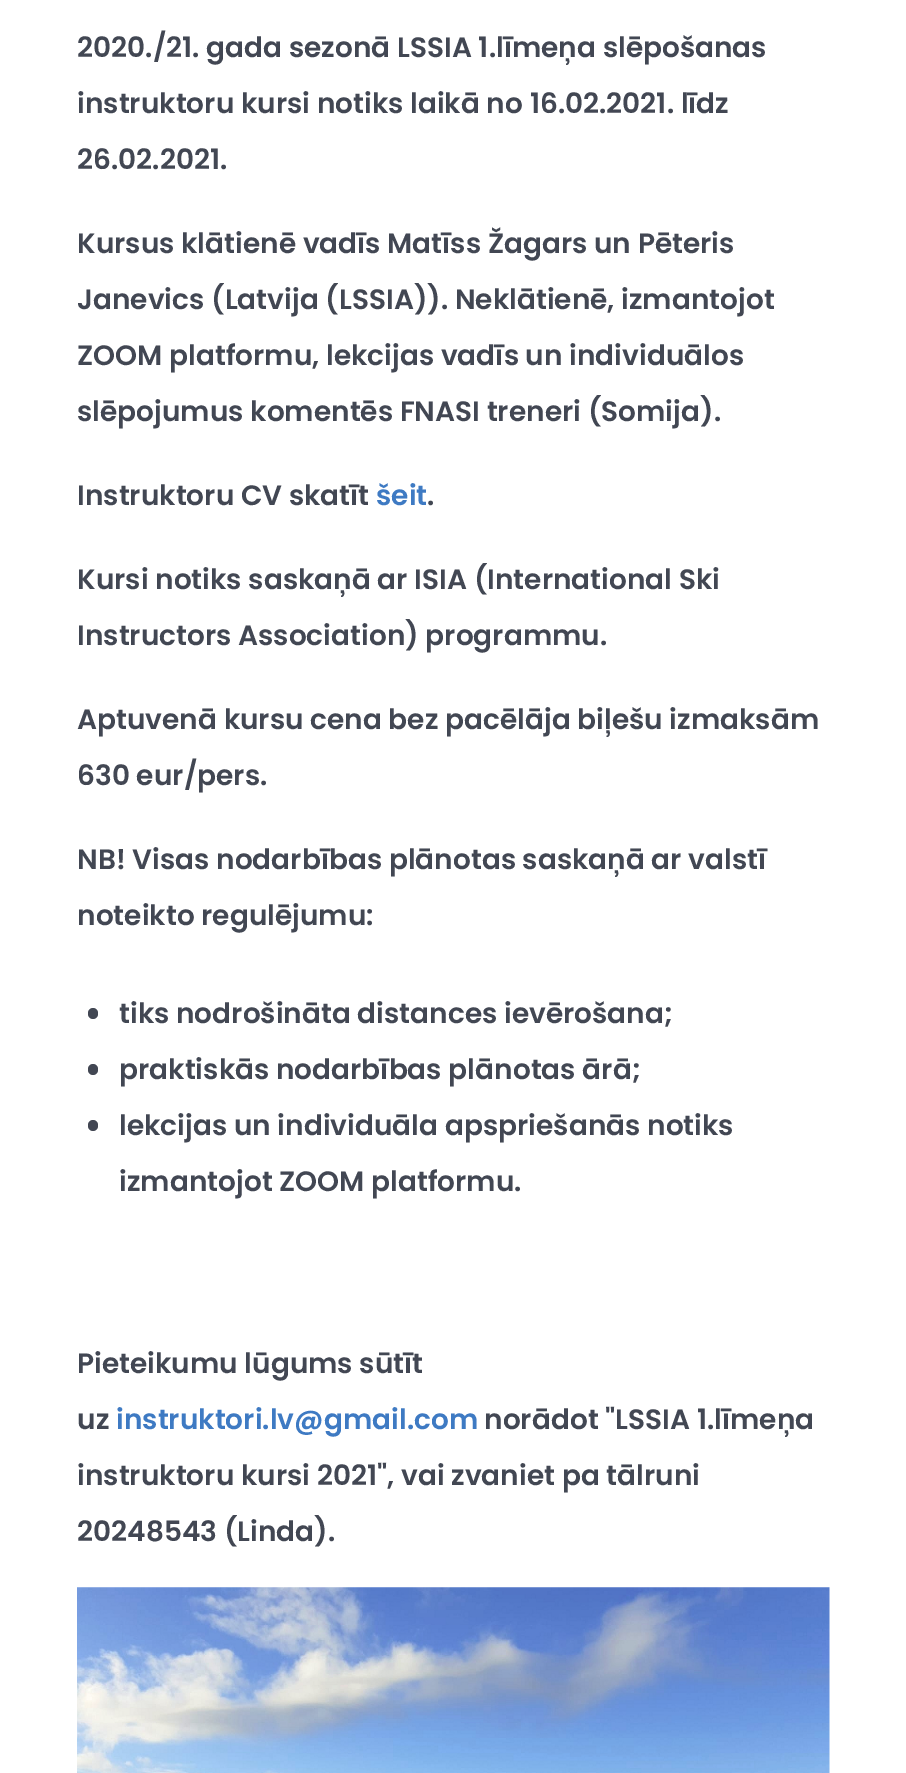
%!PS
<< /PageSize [906 1773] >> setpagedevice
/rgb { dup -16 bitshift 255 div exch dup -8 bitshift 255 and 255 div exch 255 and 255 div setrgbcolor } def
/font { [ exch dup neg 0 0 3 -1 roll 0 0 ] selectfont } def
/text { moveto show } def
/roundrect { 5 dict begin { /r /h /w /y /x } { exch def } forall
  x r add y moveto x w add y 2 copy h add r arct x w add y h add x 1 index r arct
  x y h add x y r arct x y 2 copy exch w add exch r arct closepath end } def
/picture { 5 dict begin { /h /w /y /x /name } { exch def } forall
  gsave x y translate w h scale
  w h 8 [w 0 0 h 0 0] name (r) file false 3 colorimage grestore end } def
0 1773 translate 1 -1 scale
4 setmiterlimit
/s1 { /Poppins-SemiBold 28 font 16#424753 rgb } def
/s2 { /Poppins-SemiBold 28 font 16#3E7AC3 rgb } def
16#FFFFFF rgb
0 0 906 1773 rectfill
s1
(2020./21. gada sezonā LSSIA 1.līmeņa slēpošanas) 77 57 text
(instruktoru kursi notiks laikā no 16.02.2021. līdz) 77 113 text
(26.02.2021.) 77 169 text
(Kursus klātienē vadīs Matīss Žagars un Pēteris) 77 253 text
(Janevics \(Latvija \(LSSIA\)\). Neklātienē, izmantojot) 77 309 text
(ZOOM platformu, lekcijas vadīs un individuālos) 77 365 text
(slēpojumus komentēs FNASI treneri \(Somija\).) 77 421 text
(Instruktoru CV skatīt) 77 505 text
s2
(šeit) 376 505 text
s1
(.) 427 505 text
(Kursi notiks saskaņā ar ISIA \(International Ski) 77 589 text
(Instructors Association\) programmu.) 77 645 text
(Aptuvenā kursu cena bez pacēlāja biļešu izmaksām) 77 729 text
(630 eur/pers.) 77 785 text
(NB! Visas nodarbības plānotas saskaņā ar valstī) 77 869 text
(noteikto regulējumu:) 77 925 text
88 1008 10 11 5 roundrect fill
(tiks nodrošināta distances ievērošana;) 119 1023 text
88 1064 10 11 5 roundrect fill
(praktiskās nodarbības plānotas ārā;) 119 1079 text
88 1120 10 11 5 roundrect fill
(lekcijas un individuāla apspriešanās notiks) 119 1135 text
(izmantojot ZOOM platformu.) 119 1191 text
(Pieteikumu lūgums sūtīt) 77 1373 text
(uz) 77 1429 text
s2
(instruktori.lv@gmail.com) 116 1429 text
s1
(norādot "LSSIA 1.līmeņa) 484 1429 text
(instruktoru kursi 2021", vai zvaniet pa tālruni) 77 1485 text
(20248543 \(Linda\).) 77 1541 text
(pic1.raw) 77 1587 753 186 picture
showpage
